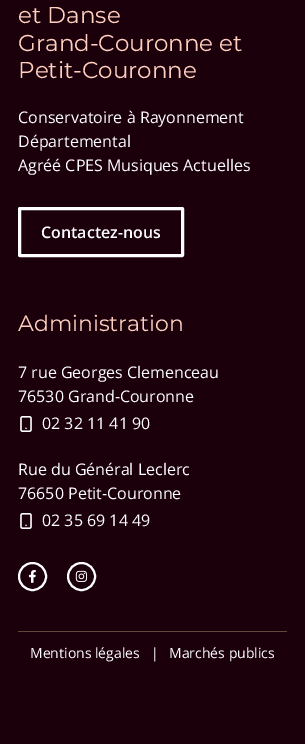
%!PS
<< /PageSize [305 744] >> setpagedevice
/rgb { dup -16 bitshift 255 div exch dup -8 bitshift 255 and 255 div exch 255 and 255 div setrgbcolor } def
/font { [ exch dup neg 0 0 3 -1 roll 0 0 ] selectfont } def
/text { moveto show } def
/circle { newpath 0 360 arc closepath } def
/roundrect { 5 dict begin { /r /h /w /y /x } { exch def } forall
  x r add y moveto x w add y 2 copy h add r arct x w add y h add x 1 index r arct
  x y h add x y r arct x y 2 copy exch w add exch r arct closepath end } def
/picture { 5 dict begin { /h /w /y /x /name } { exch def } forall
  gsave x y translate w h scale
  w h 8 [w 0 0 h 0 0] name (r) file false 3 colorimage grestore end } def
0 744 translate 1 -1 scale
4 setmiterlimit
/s1 { /Montserrat-Regular 23 font 16#FFCFBF rgb } def
/s2 { /OpenSans-Regular 16 font 16#FFFFFF rgb } def
/s3 { /OpenSans-SemiBold 16 font 16#FFFFFF rgb } def
/s4 { /Montserrat-Regular 22 font 16#FFCFBF rgb } def
/s5 { /OpenSans-Regular 14 font 16#FFFFFF rgb } def
16#1B000B rgb
0 0 305 744 rectfill
s1
(et Danse) 18 23 text
(Grand-Couronne et) 18 51 text
(Petit-Couronne) 18 78 text
s2
(Conservatoire à Rayonnement) 18 123 text
(Départemental) 18 147 text
(Agréé CPES Musiques Actuelles) 18 171 text
3 setlinewidth
19.5 208.5 163 47 0.5 roundrect stroke
s3
(Contactez-nous) 41 238 text
s4
(Administration) 18 331 text
s2
(7 rue Georges Clemenceau) 18 378 text
(76530 Grand-Couronne) 18 402 text
(pic1.raw) 20 416 12 16 picture
(02 32 11 41 90) 42 429 text
(Rue du Général Leclerc) 18 475 text
(76650 Petit-Couronne) 18 499 text
(pic1.raw) 20 513 12 16 picture
(02 35 69 14 49) 42 526 text
2 setlinewidth
32.5 576.5 13.5 circle stroke
(pic2.raw) 28 570 8 13 picture
81.5 576.5 13.5 circle stroke
(pic3.raw) 75 570 12 12 picture
16#5E493D rgb
18 631 269 1 rectfill
s5
(Mentions légales) 30 658 text
(|) 151 658 text
(Marchés publics) 169 658 text
showpage
